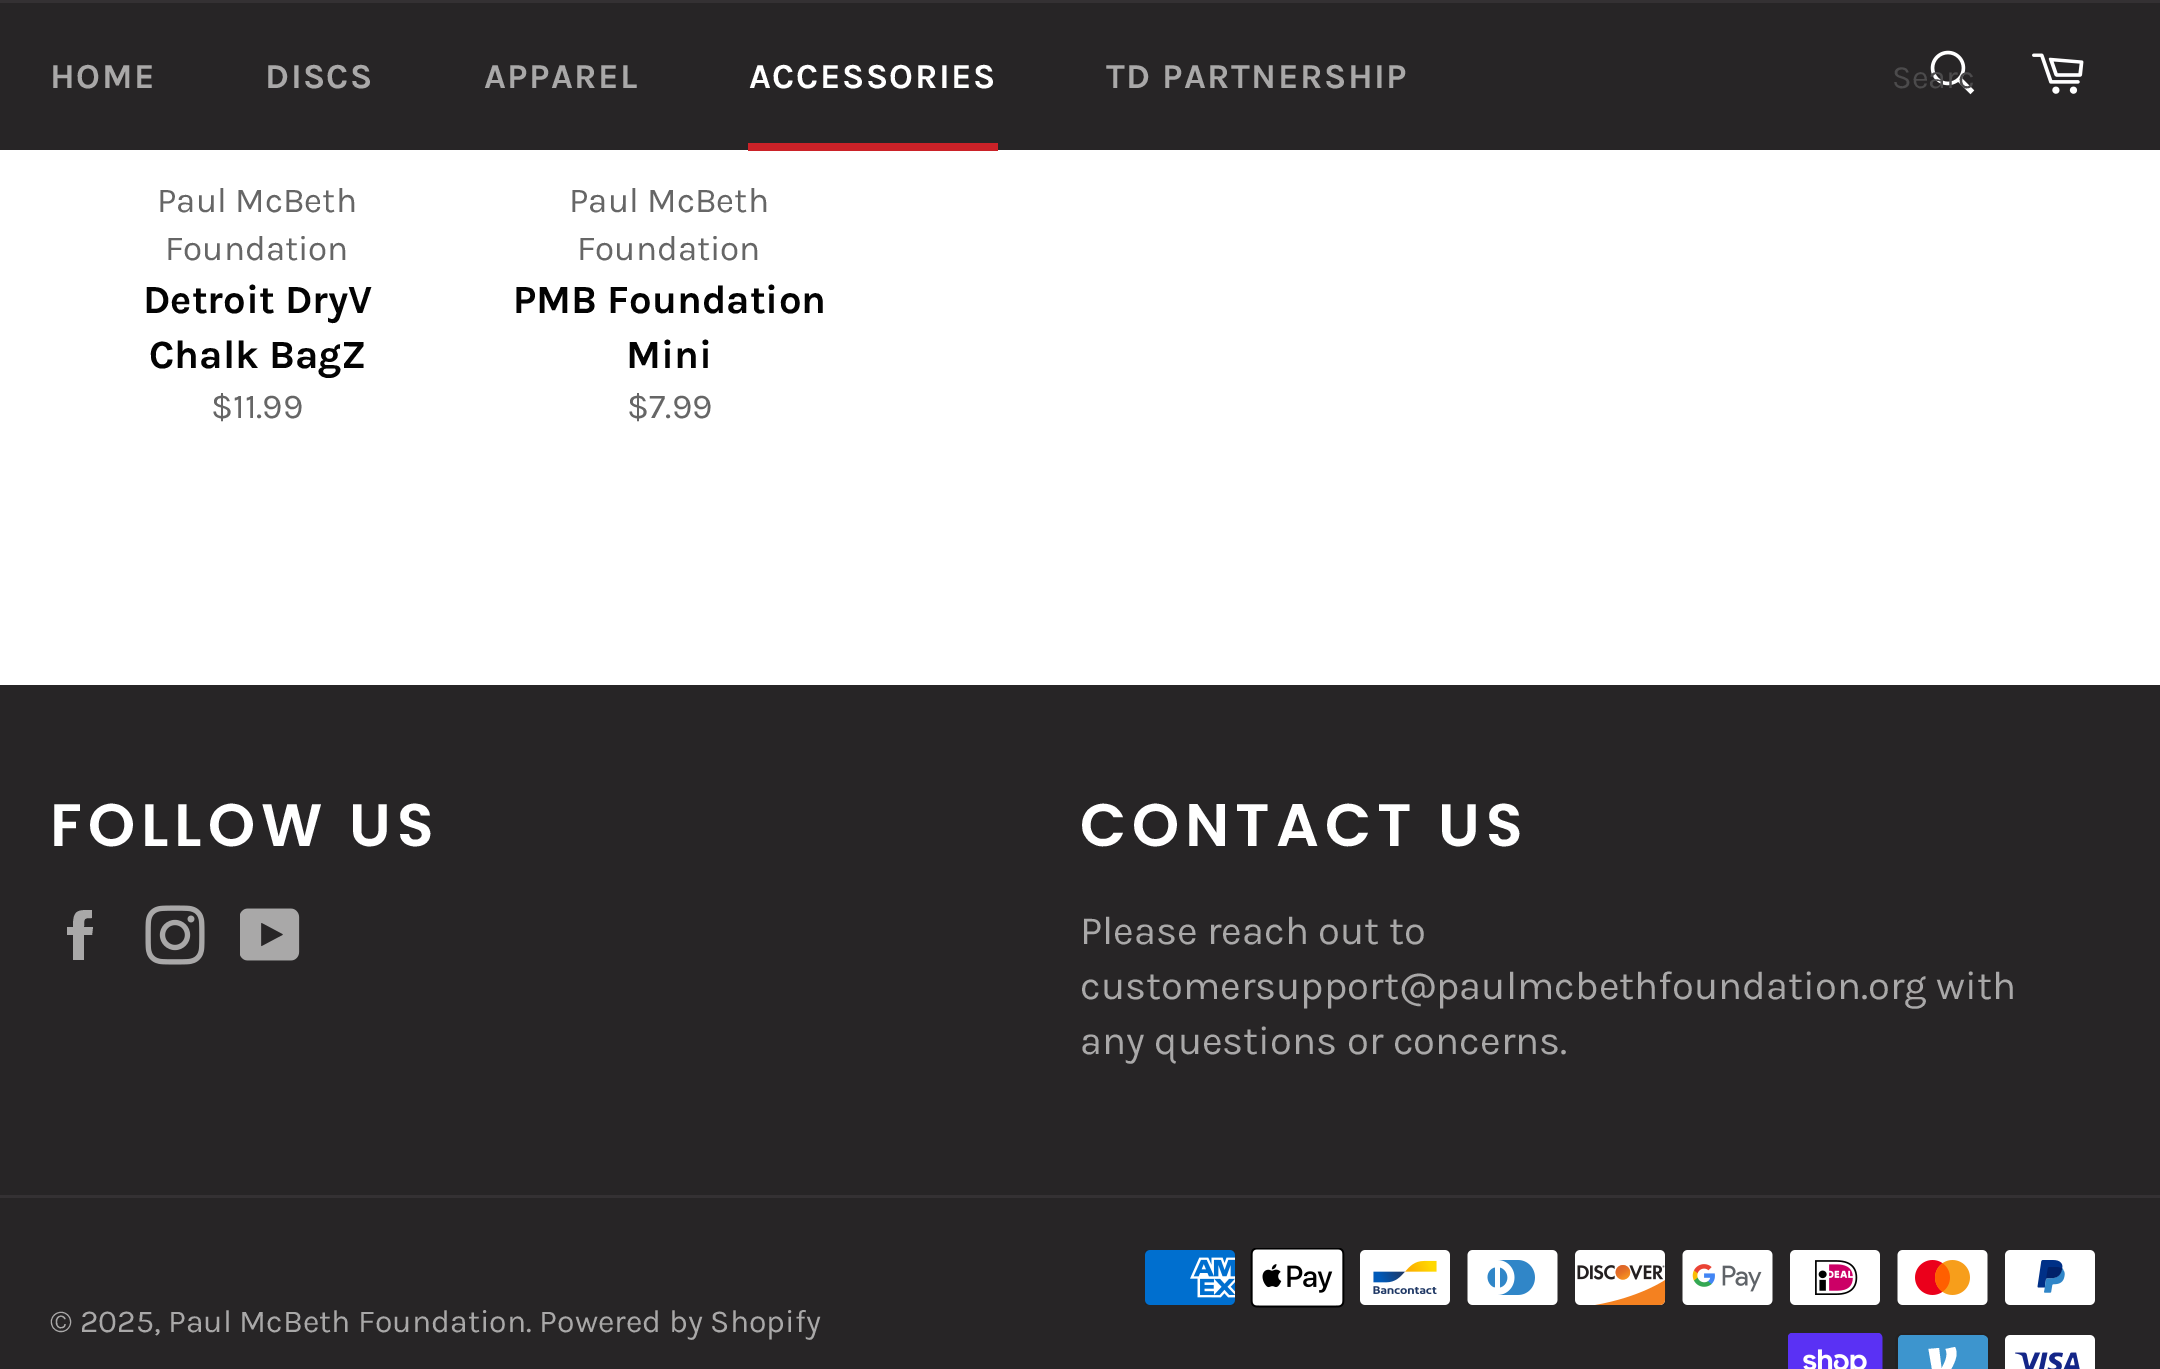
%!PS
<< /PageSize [2160 1369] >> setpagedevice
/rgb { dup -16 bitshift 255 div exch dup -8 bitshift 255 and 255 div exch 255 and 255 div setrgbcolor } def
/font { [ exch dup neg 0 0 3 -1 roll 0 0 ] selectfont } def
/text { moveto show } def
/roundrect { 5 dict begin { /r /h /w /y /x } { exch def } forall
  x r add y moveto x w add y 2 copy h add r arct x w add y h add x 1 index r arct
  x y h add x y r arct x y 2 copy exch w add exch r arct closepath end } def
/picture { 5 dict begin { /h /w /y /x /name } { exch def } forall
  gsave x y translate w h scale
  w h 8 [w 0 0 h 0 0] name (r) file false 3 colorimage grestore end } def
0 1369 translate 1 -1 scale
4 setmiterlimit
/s1 { /Karla-Regular 32.5 font 16#4C4B4C rgb } def
/s2 { /Karla-Regular 35 font 16#666666 rgb } def
/s3 { /Karla-Bold 40 font 16#030303 rgb } def
/s4 { /Karla-Regular 40 font 16#A9A8A8 rgb } def
/s5 { /Karla-Regular 32 font 16#A9A8A8 rgb } def
16#FFFFFF rgb
0 0 2160 1369 rectfill
16#272526 rgb
0 3 2160 147 rectfill
16#343133 rgb
0 0 2160 3 rectfill
/Karla-Bold 35 font
16#A9A8A8 rgb
50 88 moveto 1.5 0 (HOME) ashow
265 88 moveto 1.5 0 (DISCS) ashow
484 88 moveto 1.5 0 (APPAREL) ashow
16#FFFFFF rgb
749 88 moveto 1.5 0 (ACCESSORIES) ashow
16#CB2228 rgb
748 143 250 8 rectfill
16#A9A8A8 rgb
1106 88 moveto 1.5 0 (TD PARTNERSHIP) ashow
(pic1.raw) 1930 50 45 45 picture
gsave
1893 58 80 37 rectclip
s1
(Searc) 1892 88 text
grestore
(pic2.raw) 2032 53 52 41 picture
s2
(Paul McBeth) 157 212 text
(Foundation) 165 260 text
s3
(Detroit DryV) 143 313 text
(Chalk BagZ) 149 368 text
s2
($11.99) 211 418 text
(Paul McBeth) 569 212 text
(Foundation) 577 260 text
s3
(PMB Foundation) 513 313 text
(Mini) 626 368 text
s2
($7.99) 627 418 text
16#272526 rgb
0 685 2160 684 rectfill
/Poppins-SemiBold 60 font
16#FFFFFF rgb
50 846 moveto 6 0 (FOLLOW US) ashow
16#A9A8A8 rgb
84 927 moveto 84 918 84 918 92 918 curveto 92 910 lineto 77 910 73 910 73 927 curveto 67 927 lineto 67 935 lineto 73 935 lineto 73 960 lineto 84 960 lineto 84 935 lineto 92 935 lineto 93 927 lineto closepath fill
(pic3.raw) 145 905 60 60 picture
(pic4.raw) 240 908 60 53 picture
16#FFFFFF rgb
1080 846 moveto 6 0 (CONTACT US) ashow
s4
(Please reach out to) 1080 944 text
(customersupport@paulmcbethfoundation.org with) 1080 999 text
(any questions or concerns.) 1080 1054 text
16#343133 rgb
0 1195 2160 3 rectfill
s5
(© 2025, Paul McBeth Foundation. Powered by Shopify) 50 1332 text
(pic5.raw) 1145 1250 90 55 picture
(pic6.raw) 1250 1248 95 60 picture
(pic7.raw) 1360 1250 90 55 picture
(pic8.raw) 1467 1250 91 55 picture
(pic9.raw) 1575 1250 91 55 picture
(pic10.raw) 1682 1250 91 55 picture
(pic11.raw) 1790 1250 90 55 picture
(pic12.raw) 1897 1250 91 55 picture
(pic13.raw) 2005 1250 90 55 picture
(pic14.raw) 1788 1333 95 36 picture
16#242223 rgb
1895 1333 95 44 8 roundrect fill
16#3D95CE rgb
1982 1335 moveto 1985 1335 1988 1337 1988 1340 curveto 1988 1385 lineto 1988 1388 1985 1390 1982 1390 curveto 1902 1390 lineto 1900 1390 1898 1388 1898 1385 curveto 1898 1340 lineto 1898 1337 1900 1335 1902 1335 curveto 1982 1335 lineto eofill
16#FFFFFF rgb
1956.5 1353.5 moveto 1956.5 1361 1950.5 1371 1945 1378 curveto 1933.5 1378 lineto 1928.5 1349 lineto 1939 1348 lineto 1941.5 1368.5 lineto 1944.5 1363 1948.5 1355.5 1945.5 1349 curveto 1955 1347 lineto 1956 1349 1956.5 1351 1956.5 1353.5 curveto closepath fill
(pic15.raw) 2005 1335 90 34 picture
showpage
